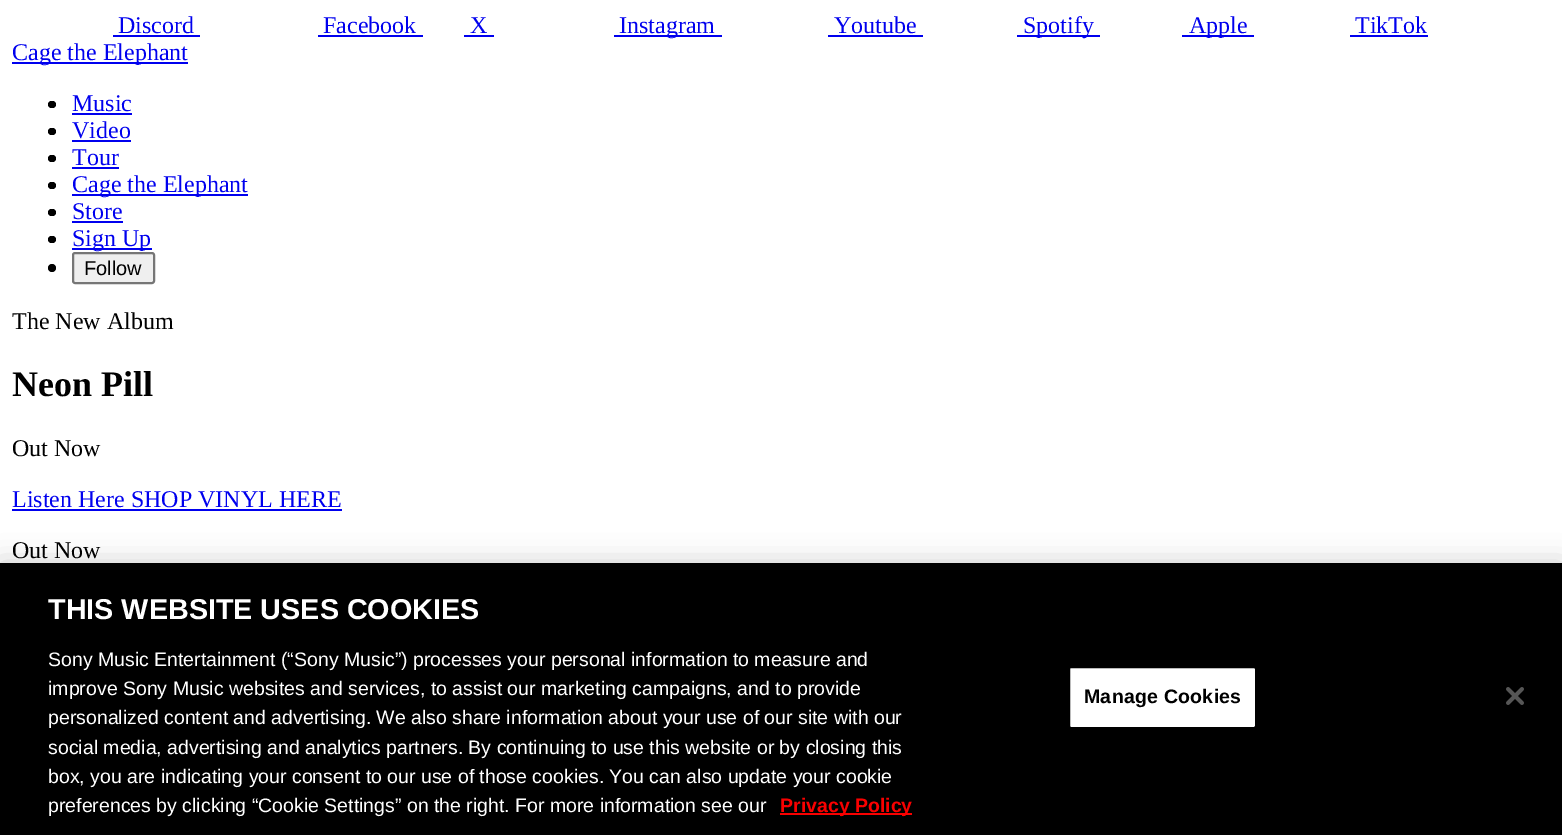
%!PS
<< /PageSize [1562 835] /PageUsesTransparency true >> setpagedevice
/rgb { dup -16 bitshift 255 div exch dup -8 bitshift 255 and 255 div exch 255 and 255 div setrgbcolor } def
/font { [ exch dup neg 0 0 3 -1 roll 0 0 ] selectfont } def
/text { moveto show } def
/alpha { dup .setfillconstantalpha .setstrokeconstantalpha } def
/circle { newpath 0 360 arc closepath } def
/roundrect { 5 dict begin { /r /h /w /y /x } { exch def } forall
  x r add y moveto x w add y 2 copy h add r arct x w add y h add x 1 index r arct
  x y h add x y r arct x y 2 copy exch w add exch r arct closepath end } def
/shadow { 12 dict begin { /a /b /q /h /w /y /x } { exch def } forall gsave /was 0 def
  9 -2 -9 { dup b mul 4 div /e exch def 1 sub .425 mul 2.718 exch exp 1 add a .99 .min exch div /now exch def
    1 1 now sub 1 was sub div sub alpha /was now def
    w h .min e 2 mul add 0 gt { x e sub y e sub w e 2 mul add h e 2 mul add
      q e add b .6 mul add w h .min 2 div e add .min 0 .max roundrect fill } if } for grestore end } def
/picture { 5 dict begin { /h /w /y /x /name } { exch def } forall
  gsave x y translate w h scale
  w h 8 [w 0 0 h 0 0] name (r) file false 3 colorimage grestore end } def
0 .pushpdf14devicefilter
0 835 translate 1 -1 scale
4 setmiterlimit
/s1 { /LiberationSerif-Regular 24 font 16#0000EE rgb } def
/s2 { /LiberationSans-Regular 20 font 16#000000 rgb } def
/s3 { /LiberationSerif-Regular 24 font 16#000000 rgb } def
/s4 { /LiberationSerif-Bold 36 font 16#000000 rgb } def
/s5 { /LiberationSans-Bold 28.75 font 16#FFFFFF rgb } def
/s6 { /LiberationSans-Regular 19.5 font 16#FFFFFF rgb } def
/s7 { /LiberationSans-Bold 19.5 font 16#F90000 rgb } def
16#FFFFFF rgb
0 0 1562 835 rectfill
s1
(Discord) 118 33 text
113 35 87 2 rectfill
(Facebook) 323 33 text
318 35 105 2 rectfill
(X) 470 33 text
464 35 30 2 rectfill
614 35 108 2 rectfill
(Instagram) 619 33 text
(Youtube) 834 33 text
828 35 95 2 rectfill
1017 35 83 2 rectfill
(Spotify) 1023 33 text
1182 35 72 2 rectfill
(Apple) 1189 33 text
(TikTok) 1355 33 text
1350 35 78 2 rectfill
12 62 176 2 rectfill
(Cage the Elephant) 12 60 text
16#000000 rgb
48 101 8 7 3.5 roundrect fill
s1
(Music) 72 111 text
72 113 60 2 rectfill
16#000000 rgb
48 128 8 7 3.5 roundrect fill
s1
(Video) 72 138 text
72 140 59 2 rectfill
16#000000 rgb
48 155 8 7 3.5 roundrect fill
s1
(Tour) 72 165 text
72 167 47 2 rectfill
16#000000 rgb
48 182 8 7 3.5 roundrect fill
16#0000EE rgb
72 194 176 2 rectfill
(Cage the Elephant) 72 192 text
16#000000 rgb
48 209 8 7 3.5 roundrect fill
s1
(Store) 72 219 text
72 221 51 2 rectfill
16#000000 rgb
48 236 8 7 3.5 roundrect fill
16#0000EE rgb
72 248 80 2 rectfill
(Sign Up) 72 246 text
16#000000 rgb
52 268 4 circle fill
16#EFEFEF rgb
73 253 81 30 2 roundrect gsave fill grestore
16#767676 rgb
2 setlinewidth
stroke
s2
(Follow) 84 275 text
s3
(The New Album) 12 329 text
s4
(Neon Pill) 12 396 text
s3
(Out Now) 12 456 text
s1
(Listen Here SHOP VINYL HERE) 12 507 text
12 509 330 2 rectfill
s3
(Out Now) 12 558 text
0 563 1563 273 0 13.5 0.2 shadow
0 563 1562 272 rectfill
s5
(THIS WEBSITE USES COOKIES) 48 619 text
s6
(Sony Music Entertainment \(“Sony Music”\) processes your personal information to measure and) 48 666 text
(improve Sony Music websites and services, to assist our marketing campaigns, and to provide) 48 695 text
(personalized content and advertising. We also share information about your use of our site with our) 48 724 text
(social media, advertising and analytics partners. By continuing to use this website or by closing this) 48 754 text
(box, you are indicating your consent to our use of those cookies. You can also update your cookie) 48 783 text
(preferences by clicking “Cookie Settings” on the right. For more information see our) 48 812 text
16#F90000 rgb
780 813 132 2 rectfill
s7
(Privacy Policy) 780 812 text
16#FFFFFF rgb
1069 667 187 61 2 roundrect gsave fill grestore
16#000000 rgb
stroke
1084 703 moveto 0.25 0 (Manage Cookies) ashow
(pic1.raw) 1506 687 18 18 picture
.poppdf14devicefilter showpage
